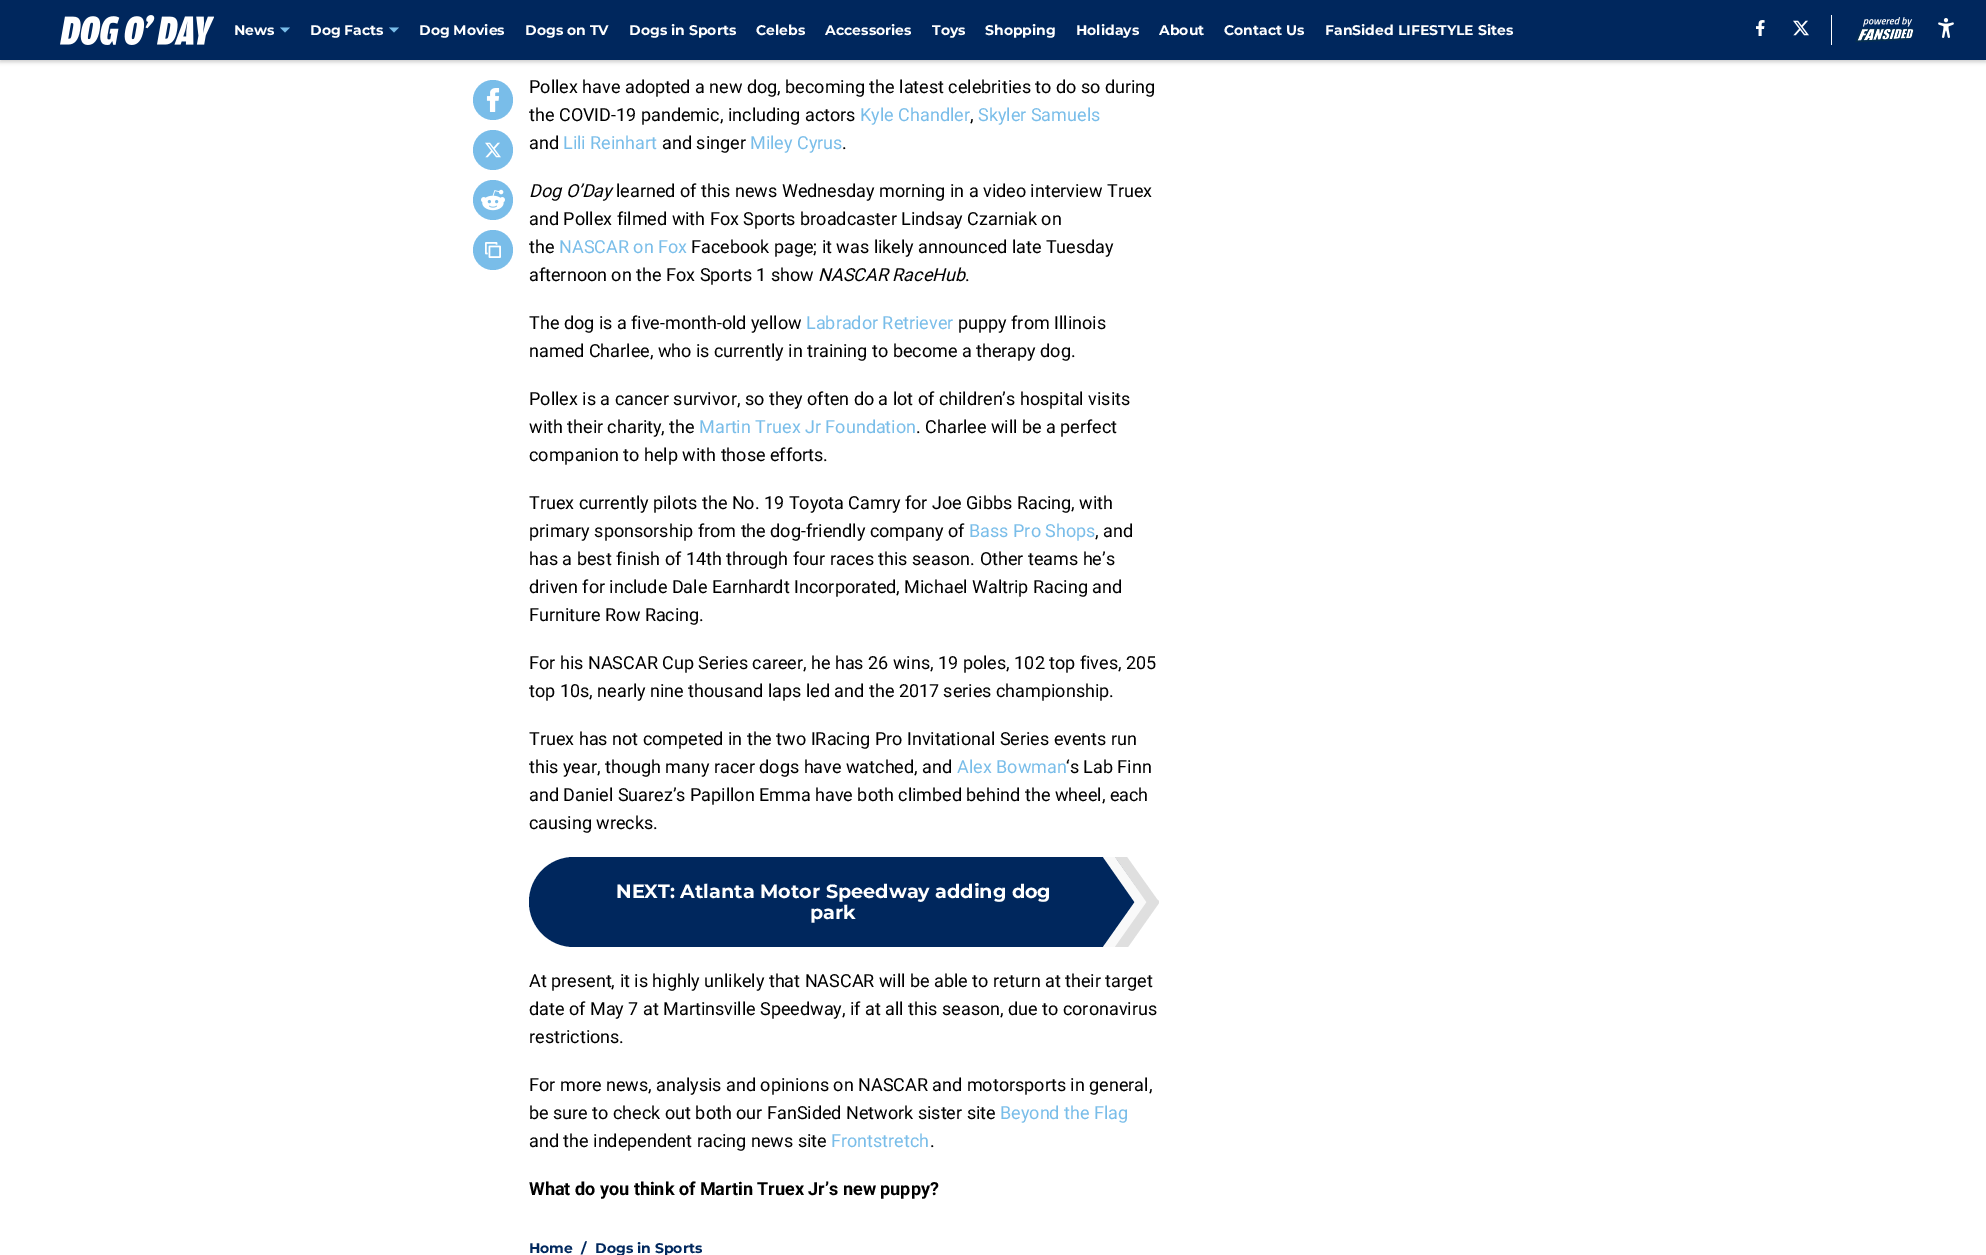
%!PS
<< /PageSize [1986 1255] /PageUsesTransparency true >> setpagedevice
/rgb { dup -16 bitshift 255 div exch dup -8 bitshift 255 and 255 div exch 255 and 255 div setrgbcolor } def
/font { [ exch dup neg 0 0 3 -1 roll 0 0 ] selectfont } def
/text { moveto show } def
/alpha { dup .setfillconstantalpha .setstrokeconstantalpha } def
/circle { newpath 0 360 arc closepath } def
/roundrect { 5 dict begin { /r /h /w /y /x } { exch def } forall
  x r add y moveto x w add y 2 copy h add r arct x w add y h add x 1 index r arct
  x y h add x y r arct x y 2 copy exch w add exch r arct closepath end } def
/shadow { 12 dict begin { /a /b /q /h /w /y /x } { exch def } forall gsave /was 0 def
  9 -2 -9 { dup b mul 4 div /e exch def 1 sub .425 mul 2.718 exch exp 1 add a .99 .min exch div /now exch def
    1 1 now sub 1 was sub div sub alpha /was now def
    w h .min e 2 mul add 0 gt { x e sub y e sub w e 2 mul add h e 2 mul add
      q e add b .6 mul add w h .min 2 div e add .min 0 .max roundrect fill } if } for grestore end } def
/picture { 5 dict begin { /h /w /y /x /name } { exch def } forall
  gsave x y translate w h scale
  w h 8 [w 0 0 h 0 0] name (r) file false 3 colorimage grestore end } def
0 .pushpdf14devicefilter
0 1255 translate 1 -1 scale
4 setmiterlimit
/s1 { /Montserrat-Thin 14 font 16#FFFFFF rgb } def
/s2 { /Roboto-Regular 18 font 16#000000 rgb } def
/s3 { /Roboto-Regular 18 font 16#79BDE9 rgb } def
/s4 { /Roboto-Italic 18 font 16#000000 rgb } def
/s5 { /Montserrat-Thin 19.2 font 16#FFFFFF rgb } def
/s6 { /Roboto-Bold 18 font 16#000000 rgb } def
/s7 { /Montserrat-Thin 14 font 16#00275D rgb } def
16#FFFFFF rgb
0 0 1986 1255 rectfill
16#000000 rgb
0 2 1986 60 0 2 0.2 shadow
16#00275D rgb
0 0 1986 60 rectfill
(pic1.raw) 60 15 154 30 picture
s1
(News) 234 35 text
16#79BDE9 rgb
280 27.5 moveto 285 32.5 lineto 290 27.5 lineto closepath eofill
s1
(Dog Facts) 310 35 text
16#79BDE9 rgb
389 27.5 moveto 394 32.5 lineto 399 27.5 lineto closepath eofill
s1
(Dog Movies) 419 35 text
(Dogs on TV) 525 35 text
(Dogs in Sports) 629 35 text
(Celebs) 756 35 text
(Accessories) 825 35 text
(Toys) 932 35 text
(Shopping) 985 35 text
(Holidays) 1076 35 text
(About) 1159 35 text
(Contact Us) 1224 35 text
(FanSided LIFESTYLE Sites) 1325 35 text
(pic2.raw) 1756 20 9 16 picture
(pic3.raw) 1793 20 16 16 picture
1831 15 1 30 rectfill
(pic4.raw) 1855 17 59 26 picture
(pic5.raw) 1938 18 16 20 picture
16#79BDE9 rgb
493 100 20 circle fill
(pic6.raw) 486 88 14 24 picture
493 150 20 circle fill
(pic7.raw) 485 142 16 16 picture
493 200 20 circle fill
(pic8.raw) 481 189 24 22 picture
493 250 20 circle fill
(pic9.raw) 485 242 16 16 picture
s2
(Pollex have adopted a new dog, becoming the latest celebrities to do so during) 529 93 text
(the COVID-19 pandemic, including actors) 529 121 text
s3
(Kyle Chandler) 860 121 text
s2
(,) 970 121 text
s3
(Skyler Samuels) 978 121 text
s2
(and) 529 149 text
s3
(Lili Reinhart) 563 149 text
s2
(and singer) 662 149 text
s3
(Miley Cyrus) 750 149 text
s2
(.) 842 149 text
s4
(Dog O’Day) 529 197 text
s2
(learned of this news Wednesday morning in a video interview Truex) 616 197 text
(and Pollex filmed with Fox Sports broadcaster Lindsay Czarniak on) 529 225 text
(the) 529 253 text
s3
(NASCAR on Fox) 559 253 text
s2
(Facebook page; it was likely announced late Tuesday) 691 253 text
(afternoon on the Fox Sports 1 show) 529 281 text
s4
(NASCAR RaceHub) 818 281 text
s2
(.) 965 281 text
(The dog is a five-month-old yellow) 529 329 text
s3
(Labrador Retriever) 806 329 text
s2
(puppy from Illinois) 958 329 text
(named Charlee, who is currently in training to become a therapy dog.) 529 357 text
(Pollex is a cancer survivor, so they often do a lot of children’s hospital visits) 529 405 text
(with their charity, the) 529 433 text
s3
(Martin Truex Jr Foundation) 699 433 text
s2
(. Charlee will be a perfect) 916 433 text
(companion to help with those efforts.) 529 461 text
(Truex currently pilots the No. 19 Toyota Camry for Joe Gibbs Racing, with) 529 509 text
(primary sponsorship from the dog-friendly company of) 529 537 text
s3
(Bass Pro Shops) 969 537 text
s2
(, and) 1095 537 text
(has a best finish of 14th through four races this season. Other teams he’s) 529 565 text
(driven for include Dale Earnhardt Incorporated, Michael Waltrip Racing and) 529 593 text
(Furniture Row Racing.) 529 621 text
(For his NASCAR Cup Series career, he has 26 wins, 19 poles, 102 top fives, 205) 529 669 text
(top 10s, nearly nine thousand laps led and the 2017 series championship.) 529 697 text
(Truex has not competed in the two IRacing Pro Invitational Series events run) 529 745 text
(this year, though many racer dogs have watched, and) 529 773 text
s3
(Alex Bowman) 957 773 text
s2
(‘s Lab Finn) 1066 773 text
(and Daniel Suarez’s Papillon Emma have both climbed behind the wheel, each) 529 801 text
(causing wrecks.) 529 829 text
16#00275D rgb
574 857 moveto 1109 857 lineto 1124.5 857 1137 869.5 1137 885 curveto 1137 919 lineto 1137 934.5 1124.5 947 1109 947 curveto 574 947 lineto 549 947 529 927 529 902 curveto 529 877 549 857 574 857 curveto closepath fill
s5
(NEXT: Atlanta Motor Speedway adding dog) 616 898 text
(park) 810 919 text
16#F9F9F9 rgb
1115 857 moveto 1147 902 lineto 1138 907 lineto 1103 857 lineto closepath fill
1139 896 moveto 1148 902 lineto 1116 947 lineto 1103 947 lineto closepath fill
16#DFDFDF rgb
1127 857 moveto 1159 902 lineto 1150 907 lineto 1115 857 lineto closepath fill
1151 896 moveto 1159 901 lineto 1159 903 lineto 1128 947 lineto 1115 947 lineto closepath fill
s2
(At present, it is highly unlikely that NASCAR will be able to return at their target) 529 987 text
(date of May 7 at Martinsville Speedway, if at all this season, due to coronavirus) 529 1015 text
(restrictions.) 529 1043 text
(For more news, analysis and opinions on NASCAR and motorsports in general,) 529 1091 text
(be sure to check out both our FanSided Network sister site) 529 1119 text
s3
(Beyond the Flag) 1000 1119 text
s2
(and the independent racing news site) 529 1147 text
s3
(Frontstretch) 831 1147 text
s2
(.) 930 1147 text
s6
(What do you think of Martin Truex Jr’s new puppy?) 529 1195 text
s7
(Home) 529 1253 text
(/) 581 1253 text
(Dogs in Sports) 595 1253 text
.poppdf14devicefilter showpage
